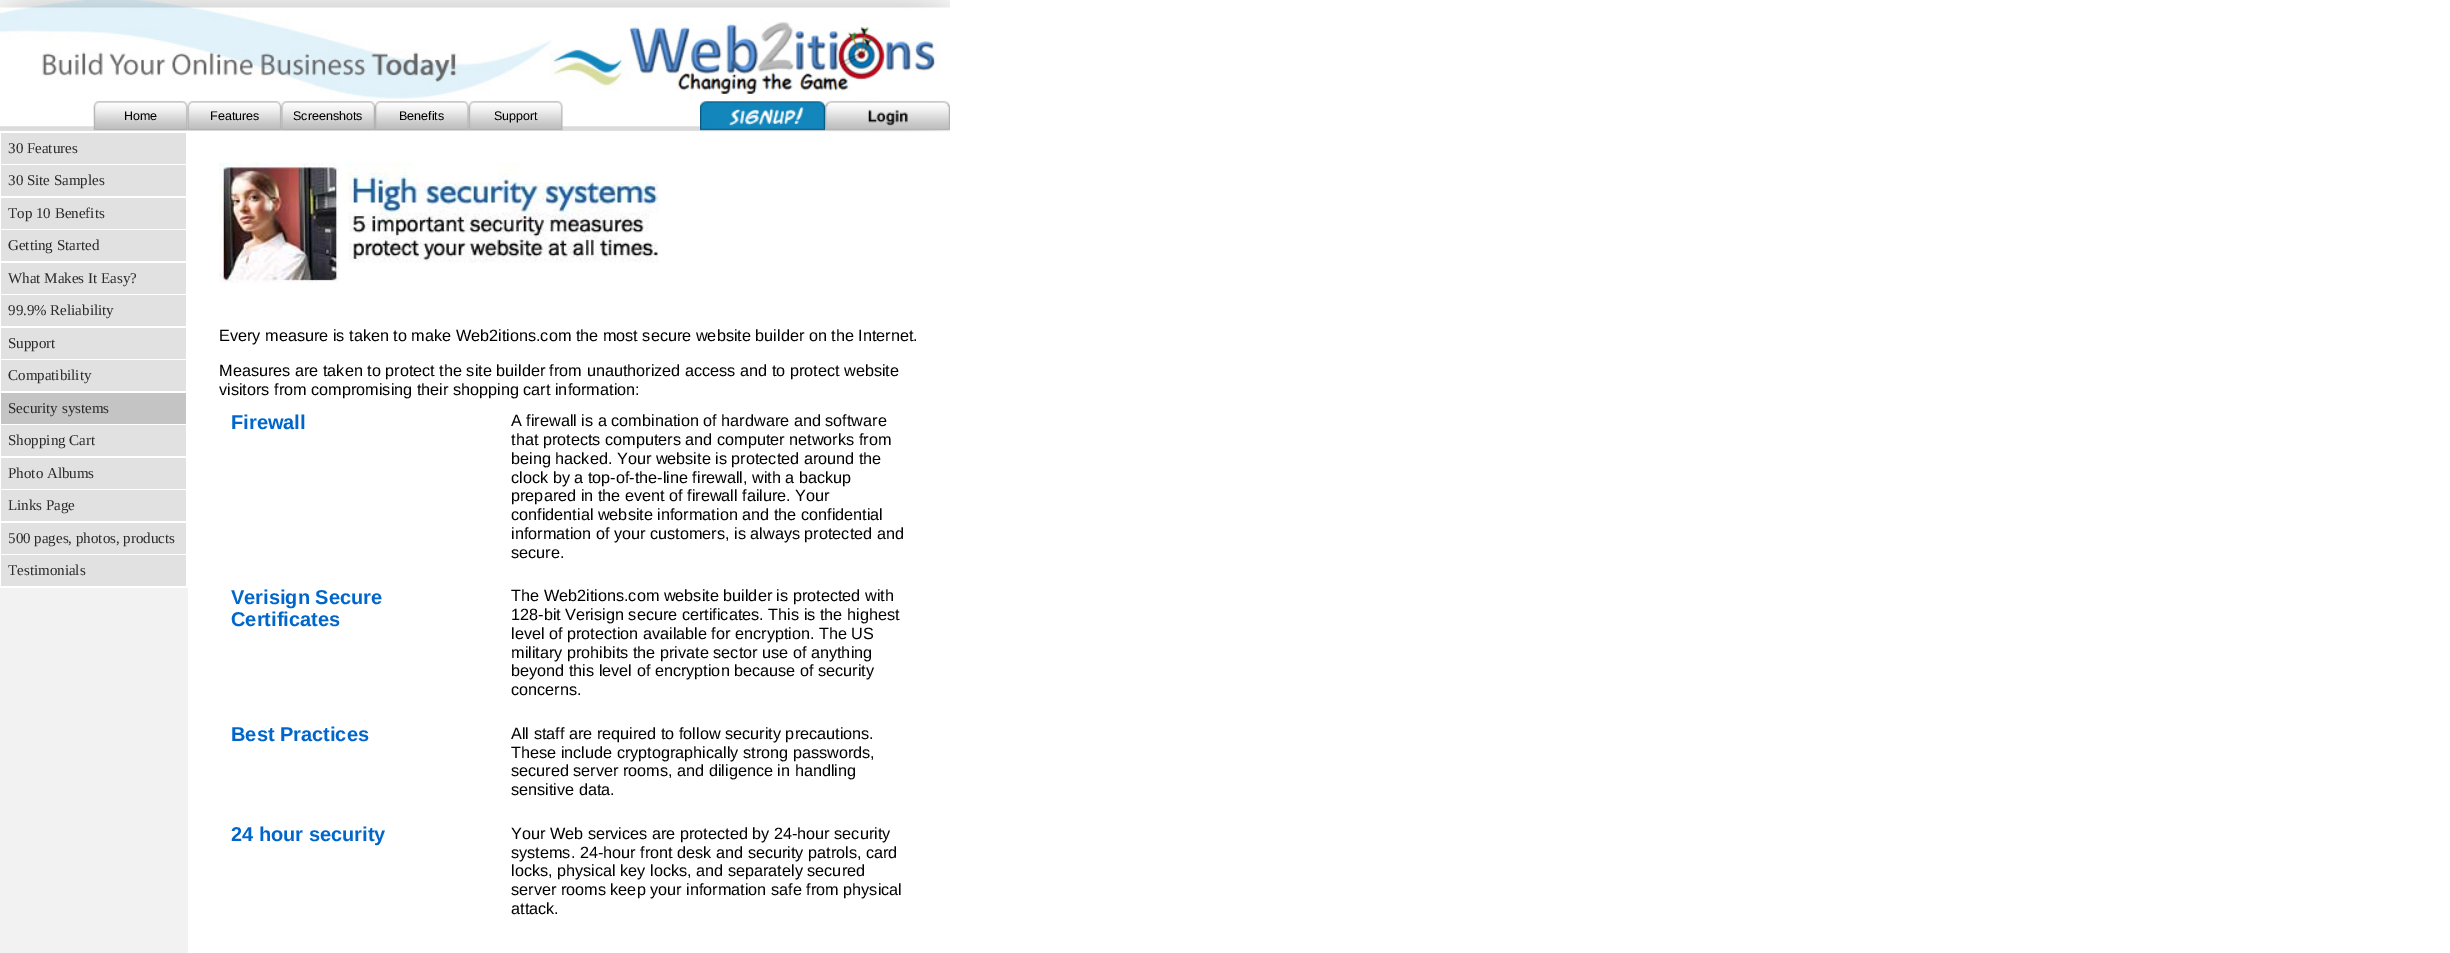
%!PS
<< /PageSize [2450 953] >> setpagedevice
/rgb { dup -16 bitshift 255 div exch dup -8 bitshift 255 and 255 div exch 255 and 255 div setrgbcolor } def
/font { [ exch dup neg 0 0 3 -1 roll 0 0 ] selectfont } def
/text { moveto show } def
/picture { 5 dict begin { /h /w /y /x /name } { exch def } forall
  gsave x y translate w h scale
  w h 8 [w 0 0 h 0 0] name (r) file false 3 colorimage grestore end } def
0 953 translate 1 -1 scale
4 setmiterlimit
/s1 { /LiberationSans-Regular 12.5 font 16#000000 rgb } def
/s2 { /LiberationSerif-Regular 15 font 16#2B2B2B rgb } def
/s3 { /LiberationSans-Regular 16.25 font 16#000000 rgb } def
/s4 { /LiberationSans-Bold 20 font 16#0066CC rgb } def
16#FFFFFF rgb
0 0 2450 953 rectfill
(pic1.raw) 0 0 950 100 picture
(pic2.raw) 0 126 700 5 picture
(pic3.raw) 93 101 95 30 picture
s1
(Home) 124 120 text
(pic4.raw) 187 101 95 30 picture
(Features) 210 120 text
(pic5.raw) 281 101 94 30 picture
(Screenshots) 293 120 text
(pic6.raw) 375 101 94 30 picture
(Benefits) 399 120 text
(pic7.raw) 468 101 95 30 picture
(Support) 494 120 text
(pic8.raw) 700 101 125 31 picture
(pic9.raw) 825 101 125 31 picture
16#F2F2F2 rgb
0 588 188 365 rectfill
16#E1E1E1 rgb
1 133 185 31 rectfill
s2
(30 Features) 8 153 text
16#E1E1E1 rgb
1 165 185 31 rectfill
s2
(30 Site Samples) 8 185 text
16#E1E1E1 rgb
1 198 185 31 rectfill
s2
(Top 10 Benefits) 8 218 text
16#E1E1E1 rgb
1 230 185 31 rectfill
s2
(Getting Started) 8 250 text
16#E1E1E1 rgb
1 263 185 31 rectfill
s2
(What Makes It Easy?) 8 283 text
16#E1E1E1 rgb
1 295 185 31 rectfill
s2
(99.9% Reliability) 8 315 text
16#E1E1E1 rgb
1 328 185 31 rectfill
s2
(Support) 8 348 text
16#E1E1E1 rgb
1 360 185 31 rectfill
s2
(Compatibility) 8 380 text
16#C4C4C4 rgb
1 393 185 31 rectfill
s2
(Security systems) 8 413 text
16#E1E1E1 rgb
1 425 185 31 rectfill
s2
(Shopping Cart) 8 445 text
16#E1E1E1 rgb
1 458 185 31 rectfill
s2
(Photo Albums) 8 478 text
16#E1E1E1 rgb
1 490 185 31 rectfill
s2
(Links Page) 8 510 text
16#E1E1E1 rgb
1 523 185 31 rectfill
s2
(500 pages, photos, products) 8 543 text
16#E1E1E1 rgb
1 555 185 31 rectfill
s2
(Testimonials) 8 575 text
(pic10.raw) 219 162 440 121 picture
s3
(Every measure is taken to make Web2itions.com the most secure website builder on the Internet.) 219 341 text
(Measures are taken to protect the site builder from unauthorized access and to protect website) 219 376 text
(visitors from compromising their shopping cart information:) 219 395 text
s4
(Firewall) 231 429 text
s3
(A firewall is a combination of hardware and software) 511 426 text
(that protects computers and computer networks from) 511 445 text
(being hacked. Your website is protected around the) 511 464 text
(clock by a top-of-the-line firewall, with a backup) 511 483 text
(prepared in the event of firewall failure. Your) 511 501 text
(confidential website information and the confidential) 511 520 text
(information of your customers, is always protected and) 511 539 text
(secure.) 511 558 text
s4
(Verisign Secure) 231 604 text
(Certificates) 231 626 text
s3
(The Web2itions.com website builder is protected with) 511 601 text
(128-bit Verisign secure certificates. This is the highest) 511 620 text
(level of protection available for encryption. The US) 511 639 text
(military prohibits the private sector use of anything) 511 658 text
(beyond this level of encryption because of security) 511 676 text
(concerns.) 511 695 text
s4
(Best Practices) 231 741 text
s3
(All staff are required to follow security precautions.) 511 739 text
(These include cryptographically strong passwords,) 511 758 text
(secured server rooms, and diligence in handling) 511 776 text
(sensitive data.) 511 795 text
s4
(24 hour security) 231 841 text
s3
(Your Web services are protected by 24-hour security) 511 839 text
(systems. 24-hour front desk and security patrols, card) 511 858 text
(locks, physical key locks, and separately secured) 511 876 text
(server rooms keep your information safe from physical) 511 895 text
(attack.) 511 914 text
showpage
